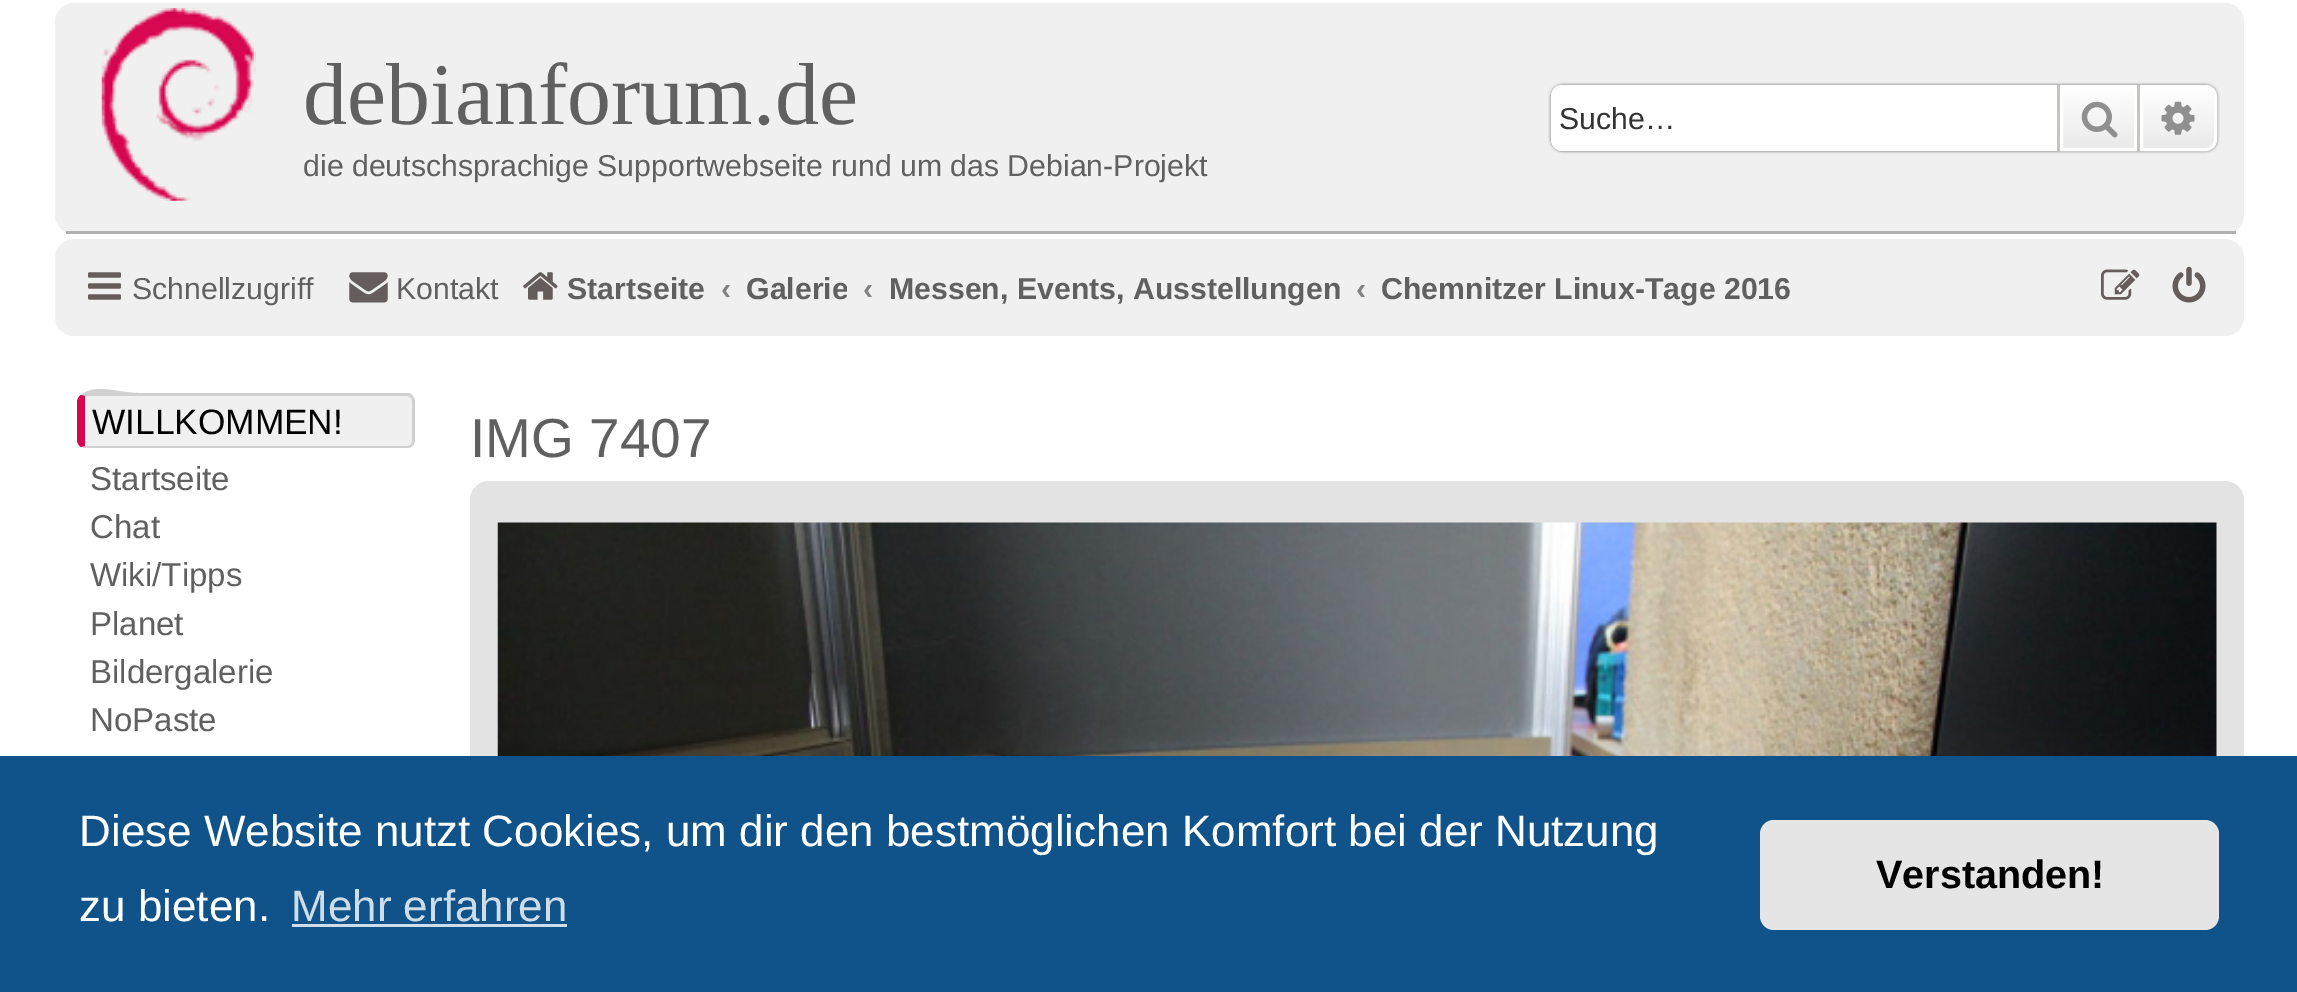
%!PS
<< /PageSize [2297 992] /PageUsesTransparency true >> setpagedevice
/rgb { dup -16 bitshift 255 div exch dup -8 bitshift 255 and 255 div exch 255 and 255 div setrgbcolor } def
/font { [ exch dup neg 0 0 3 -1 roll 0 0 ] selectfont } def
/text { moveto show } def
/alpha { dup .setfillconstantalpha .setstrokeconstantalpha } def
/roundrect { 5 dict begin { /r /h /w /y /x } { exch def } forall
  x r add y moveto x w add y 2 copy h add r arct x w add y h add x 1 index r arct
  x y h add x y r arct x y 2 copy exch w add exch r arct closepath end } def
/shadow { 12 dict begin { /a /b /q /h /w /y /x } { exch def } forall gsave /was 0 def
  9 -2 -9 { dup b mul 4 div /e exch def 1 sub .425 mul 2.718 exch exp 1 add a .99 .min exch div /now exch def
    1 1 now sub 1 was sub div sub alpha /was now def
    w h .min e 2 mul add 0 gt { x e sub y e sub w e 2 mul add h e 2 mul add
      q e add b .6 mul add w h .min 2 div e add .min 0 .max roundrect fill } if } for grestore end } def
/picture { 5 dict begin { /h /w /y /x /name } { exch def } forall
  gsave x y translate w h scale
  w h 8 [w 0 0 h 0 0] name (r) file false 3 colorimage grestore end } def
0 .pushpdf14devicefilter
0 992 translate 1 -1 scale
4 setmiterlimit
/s1 { /LiberationSerif-Regular 88 font 16#606060 rgb } def
/s2 { /LiberationSans-Regular 30.25 font 16#606060 rgb } def
/s3 { /LiberationSans-Regular 30.25 font 16#333333 rgb } def
/s4 { /LiberationSans-Bold 30.25 font 16#606060 rgb } def
/s5 { /LiberationSans-Bold 30.25 font 16#848281 rgb } def
/s6 { /LiberationSans-Regular 35.25 font 16#000000 rgb } def
/s7 { /LiberationSans-Regular 33 font 16#606060 rgb } def
/s8 { /LiberationSans-Regular 55 font 16#606060 rgb } def
/s9 { /LiberationSans-Regular 44 font 16#FFFFFF rgb } def
/s10 { /LiberationSans-Regular 44 font 16#CFDDE8 rgb } def
/s11 { /LiberationSans-Bold 39.5 font 16#000000 rgb } def
16#FFFFFF rgb
0 0 2297 992 rectfill
16#F0F0F0 rgb
55 3 2189 231 19 roundrect fill
16#B0B0B0 rgb
66 231 2170 3 rectfill
(pic1.raw) 101 8 155 193 picture
s1
(debianforum.de) 303 124 text
s2
(die deutschsprachige Supportwebseite rund um das Debian-Projekt) 303 176 text
16#746867 rgb
1551 85 666 66 11 1.5 1 shadow
16#FFFFFF rgb
1562 85 moveto 2057 85 lineto 2057 151 lineto 1562 151 lineto 1556 151 1551 146 1551 140 curveto 1551 96 lineto 1551 90 1556 85 1562 85 curveto closepath fill
s3
(Suche…) 1559 129 text
gsave 2063 88 moveto 2134 88 lineto 2134 148 lineto 2063 148 lineto closepath clip newpath
<< /ShadingType 2 /ColorSpace /DeviceRGB /Coords [2098 85 2098 151] /Extend [true true] /Function << /FunctionType 2 /Domain [0 1] /C0 [1 1 1] /C1 [0.914 0.914 0.914] /N 1 >> >> shfill grestore
16#FFFFFF rgb
3 setlinewidth
2061.5 86.5 74 63 rectstroke
16#C7C3BF rgb
2137 85 3 66 rectfill
2057 85 3 66 rectfill
(pic2.raw) 2081 101 37 37 picture
gsave 2141.5 86.5 moveto 2206 86.5 lineto 2211 86.5 2215.5 91 2215.5 96 curveto 2215.5 140 lineto 2215.5 145 2211 149.5 2206 149.5 curveto 2141.5 149.5 lineto closepath clip newpath
<< /ShadingType 2 /ColorSpace /DeviceRGB /Coords [2178 85 2178 151] /Extend [true true] /Function << /FunctionType 2 /Domain [0 1] /C0 [1 1 1] /C1 [0.914 0.914 0.914] /N 1 >> >> shfill grestore
16#FFFFFF rgb
2141.5 86.5 moveto 2206 86.5 lineto 2211 86.5 2215.5 91 2215.5 96 curveto 2215.5 140 lineto 2215.5 145 2211 149.5 2206 149.5 curveto 2141.5 149.5 lineto closepath stroke
(pic3.raw) 2161 101 34 34 picture
16#F0F0F0 rgb
55 239 2189 97 19 roundrect fill
(pic4.raw) 88 272 33 28 picture
s2
(Schnellzugriff) 132 299 text
(pic5.raw) 349 272 39 31 picture
(Kontakt) 396 299 text
(pic6.raw) 523 272 35 28 picture
s4
(Startseite) 567 299 text
s5
(‹) 721 299 text
gsave
745 256 102 66 rectclip
s4
(Galerie) 746 299 text
grestore
(‹) 863 299 text
s4
(Messen, Events, Ausstellungen) 889 299 text
s5
(‹) 1356 299 text
gsave
1381 256 409 66 rectclip
s4
(Chemnitzer Linux-Tage 2016) 1381 299 text
grestore
(pic7.raw) 2101 269 39 31 picture
(pic8.raw) 2172 266 34 37 picture
16#F0F0F0 rgb
85 396 moveto 407 396 lineto 410 396 412 398 412 402 curveto 412 440 lineto 412 443 410 446 407 446 curveto 85 446 lineto closepath fill
16#D0D0D0 rgb
81 395 moveto 96 383 119 393 138 393 curveto 410 393 lineto 413 396 lineto 411 398 lineto 410 397 409 396 407 396 curveto 85 396 lineto closepath fill
413 396 moveto 414 397 415 400 415 402 curveto 415 440 lineto 415 442 414 444 413 446 curveto 411 444 lineto 412 443 412 441 412 440 curveto 412 402 lineto 412 400 412 399 411 398 curveto closepath fill
413 446 moveto 411 447 409 448 407 448 curveto 85 448 lineto 81 447 lineto 85 446 lineto 407 446 lineto 409 446 410 445 411 444 curveto closepath fill
16#D70751 rgb
85 396 moveto 81 395 lineto 79 396 77 399 77 402 curveto 77 440 lineto 77 443 79 446 81 447 curveto 85 446 lineto closepath fill
s6
(WILLKOMMEN!) 92 434 text
s7
(Startseite) 90 490 text
(Chat) 90 538 text
(Wiki/Tipps) 90 586 text
(Planet) 90 635 text
(Bildergalerie) 90 683 text
(NoPaste) 90 731 text
s8
(IMG 7407) 470 457 text
16#E3E3E3 rgb
470 481 1774 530 19 roundrect fill
(pic9.raw) 497 522 1720 234 picture
16#0F538A rgb
0 756 2297 236 rectfill
s9
(Diese Website nutzt Cookies, um dir den bestmöglichen Komfort bei der Nutzung) 79 846 text
(zu bieten.) 79 921 text
s10
(Mehr erfahren) 291 921 text
292 924 275 3 rectfill
16#E5E5E5 rgb
1760 820 459 110 14 roundrect fill
s11
(Verstanden!) 1876 888 text
.poppdf14devicefilter showpage
